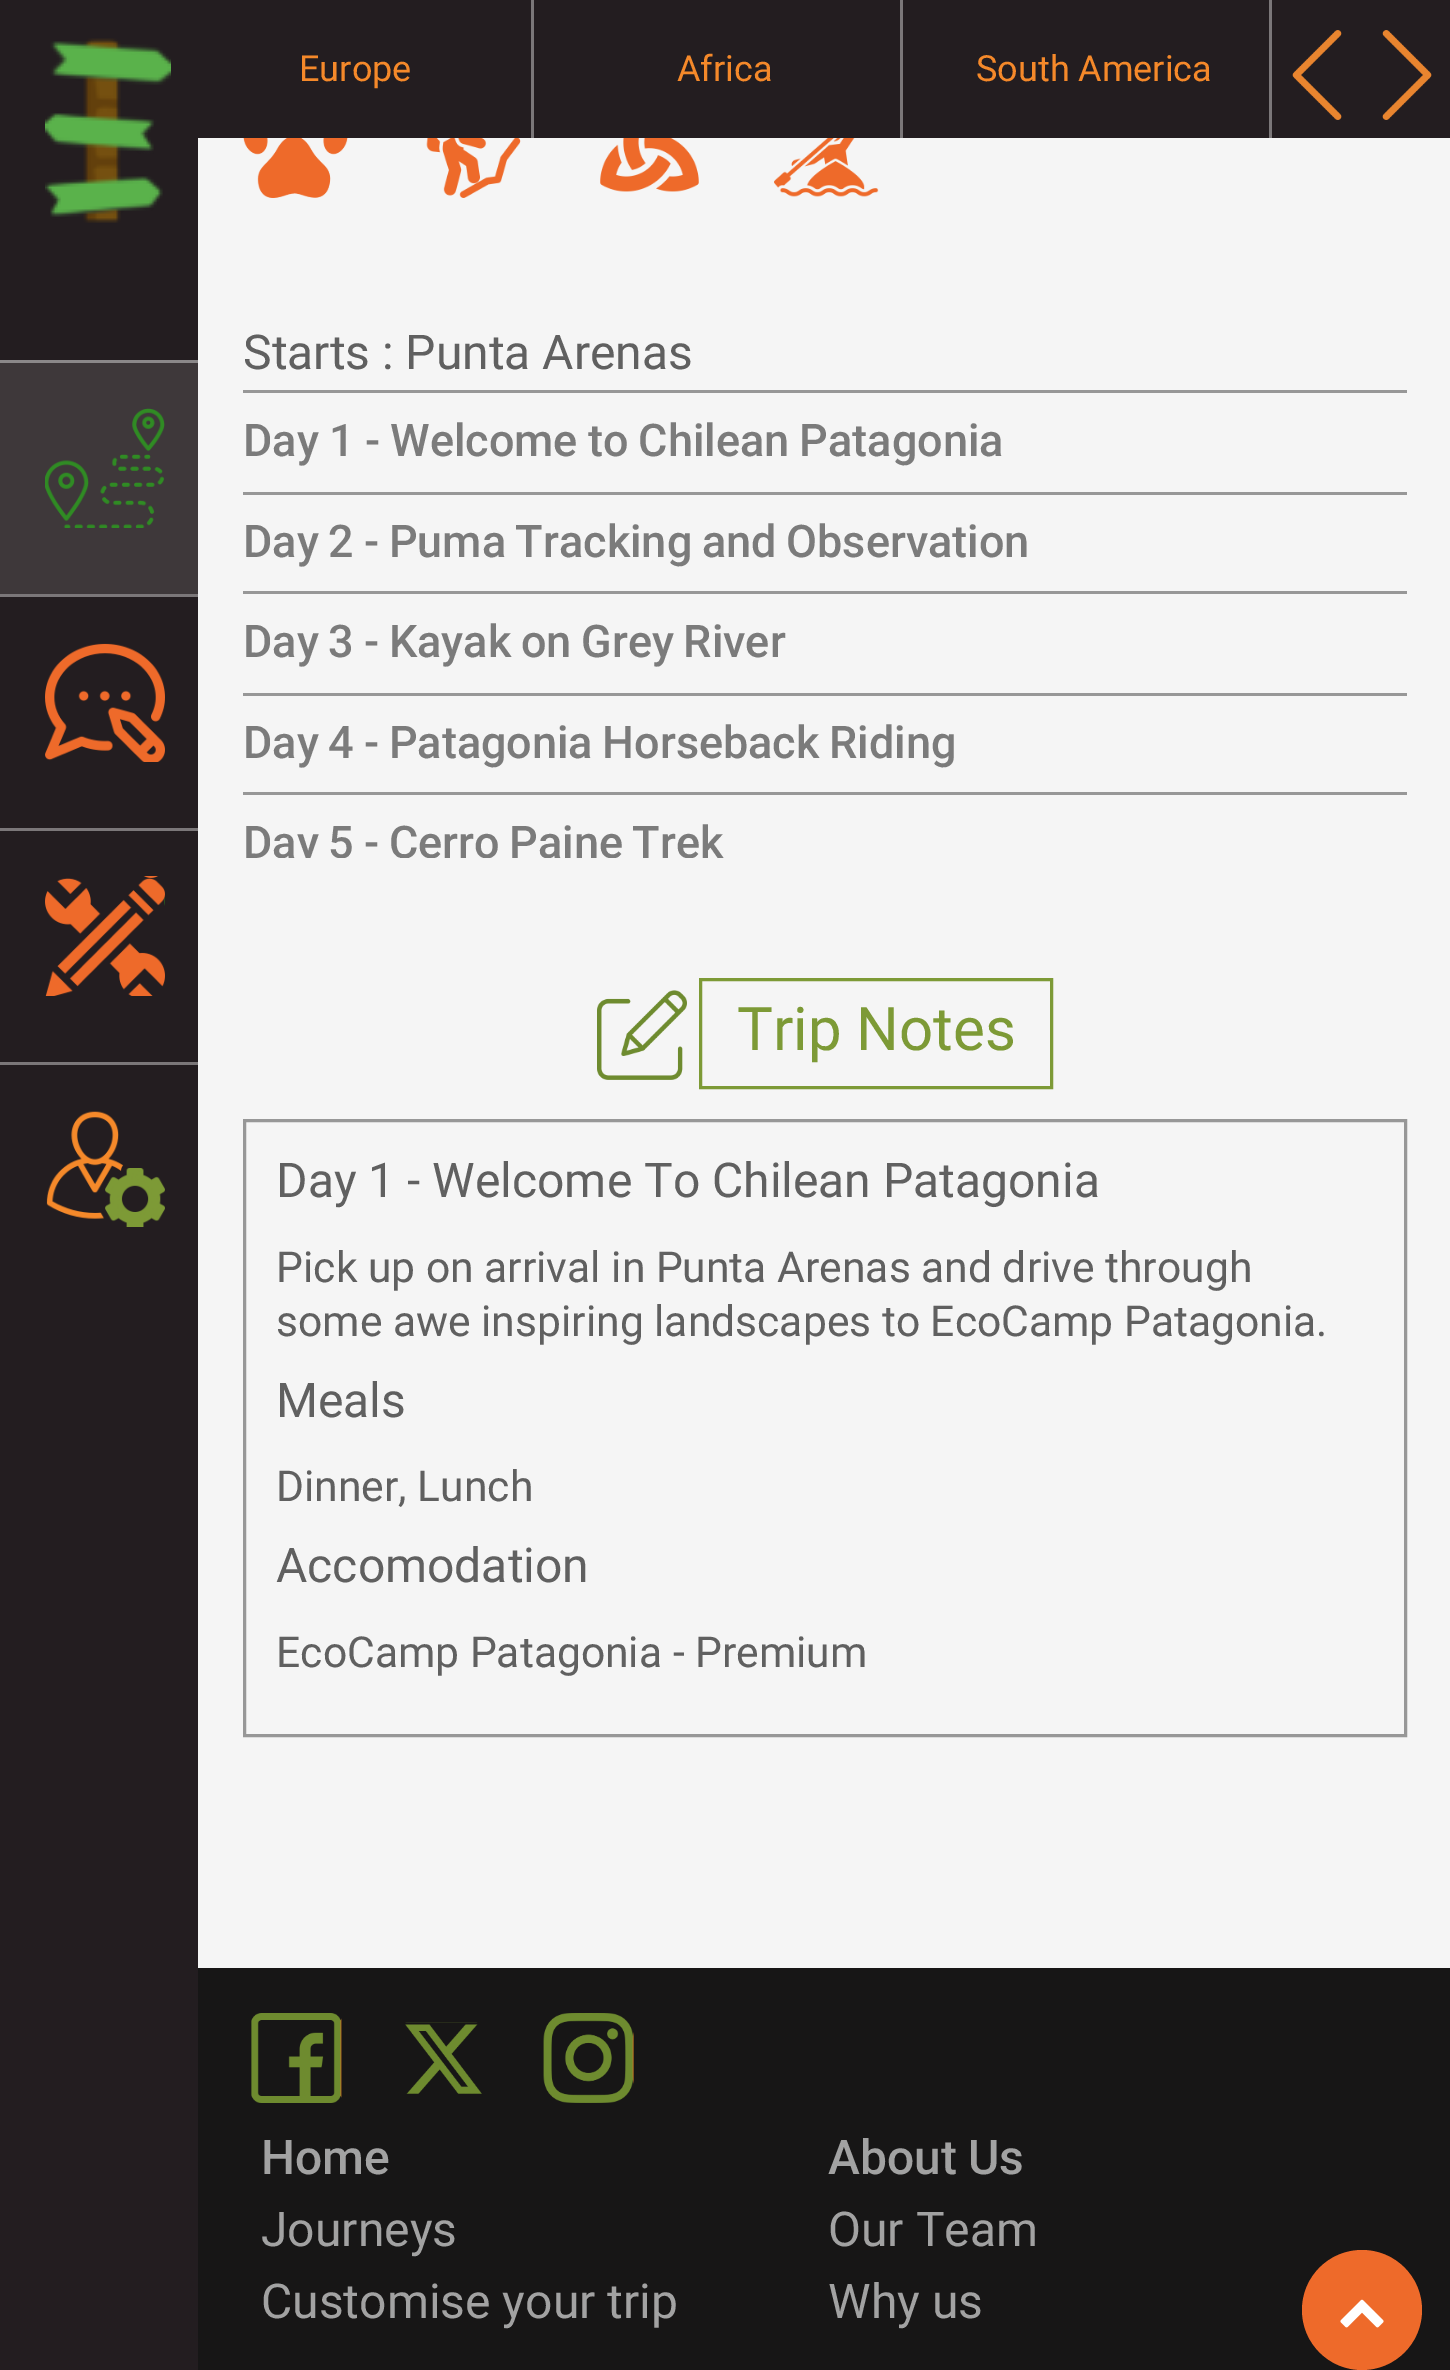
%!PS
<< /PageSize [1450 2370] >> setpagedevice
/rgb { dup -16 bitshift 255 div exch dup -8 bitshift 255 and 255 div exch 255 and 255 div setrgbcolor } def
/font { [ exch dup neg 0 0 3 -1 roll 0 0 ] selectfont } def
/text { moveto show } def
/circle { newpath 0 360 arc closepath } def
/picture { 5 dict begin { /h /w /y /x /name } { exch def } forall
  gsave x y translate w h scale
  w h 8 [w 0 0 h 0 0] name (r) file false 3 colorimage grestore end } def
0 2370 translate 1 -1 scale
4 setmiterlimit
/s1 { /Roboto-Regular 36 font 16#F5892A rgb } def
/s2 { /Roboto-Regular 48 font 16#606060 rgb } def
/s3 { /Roboto-Regular 60 font 16#7D9A36 rgb } def
/s4 { /Roboto-Regular 42.6 font 16#606060 rgb } def
/s5 { /Roboto-Medium 48 font 16#A2A2A2 rgb } def
/s6 { /Roboto-Regular 48 font 16#A2A2A2 rgb } def
16#171616 rgb
0 0 1450 2370 rectfill
16#231D20 rgb
0 0 1450 138 rectfill
0 138 198 2232 rectfill
(pic1.raw) 45 38 126 185 picture
16#7B7779 rgb
531 0 3 138 rectfill
s1
(Europe) 299 81 text
16#7B7779 rgb
900 0 3 138 rectfill
s1
(Africa) 677 81 text
16#7B7779 rgb
1269 0 3 138 rectfill
s1
(South America) 976 81 text
(pic2.raw) 1292 30 50 90 picture
(pic3.raw) 1382 30 50 90 picture
16#3E383A rgb
0 363 198 231 rectfill
16#8B8889 rgb
0 360 198 3 rectfill
(pic4.raw) 45 408 120 120 picture
16#7B7779 rgb
0 594 198 3 rectfill
(pic5.raw) 45 643 120 119 picture
0 828 198 3 rectfill
(pic6.raw) 45 876 120 120 picture
0 1062 198 3 rectfill
(pic7.raw) 46 1111 119 116 picture
16#F5F5F5 rgb
198 138 1252 1830 rectfill
(pic8.raw) 243 138 105 60 picture
(pic9.raw) 426 138 95 60 picture
(pic10.raw) 600 138 99 54 picture
(pic11.raw) 774 138 105 59 picture
16#979797 rgb
243 390 1164 3 rectfill
s2
(Starts : Punta Arenas) 243 369 text
16#979797 rgb
243 492 1164 3 rectfill
/Roboto-Medium 45 font
16#7B7B7B rgb
243 456 moveto -1 0 32 (Day 1 - Welcome to Chilean Patagonia) widthshow
16#979797 rgb
243 591 1164 3 rectfill
16#7B7B7B rgb
243 557 moveto -1.5 0 32 (Day 2 - Puma Tracking and Observation) widthshow
16#979797 rgb
243 693 1164 3 rectfill
16#7B7B7B rgb
243 657 moveto -1.5 0 32 (Day 3 - Kayak on Grey River) widthshow
16#979797 rgb
243 792 1164 3 rectfill
16#7B7B7B rgb
243 758 moveto -1.5 0 32 (Day 4 - Patagonia Horseback Riding) widthshow
gsave
243 258 1164 600 rectclip
243 858 moveto -1.5 0 32 (Day 5 - Cerro Paine Trek) widthshow
grestore
(pic12.raw) 597 990 90 90 picture
16#7D9A36 rgb
3 setlinewidth
700.5 979.5 351 108 rectstroke
s3
(Trip Notes) 737 1050 text
16#979797 rgb
244.5 1120.5 1161 615 rectstroke
s2
(Day 1 - Welcome To Chilean Patagonia) 276 1197 text
s4
(Pick up on arrival in Punta Arenas and drive through) 276 1282 text
(some awe inspiring landscapes to EcoCamp Patagonia.) 276 1336 text
s2
(Meals) 276 1417 text
s4
(Dinner, Lunch) 276 1501 text
s2
(Accomodation) 276 1582 text
s4
(EcoCamp Patagonia - Premium) 276 1667 text
(pic13.raw) 251 2013 91 90 picture
(pic14.raw) 405 2022 77 72 picture
(pic15.raw) 543 2013 91 90 picture
s5
(Home) 261 2174 text
s6
(Journeys) 261 2246 text
(Customise your trip) 261 2318 text
/Roboto-Medium 48 font
828 2174 moveto -1 0 32 (About Us) widthshow
s6
(Our Team) 828 2246 text
(Why us) 828 2318 text
16#EE6A2A rgb
1362 2310 60 circle fill
(pic16.raw) 1340 2299 44 29 picture
showpage
